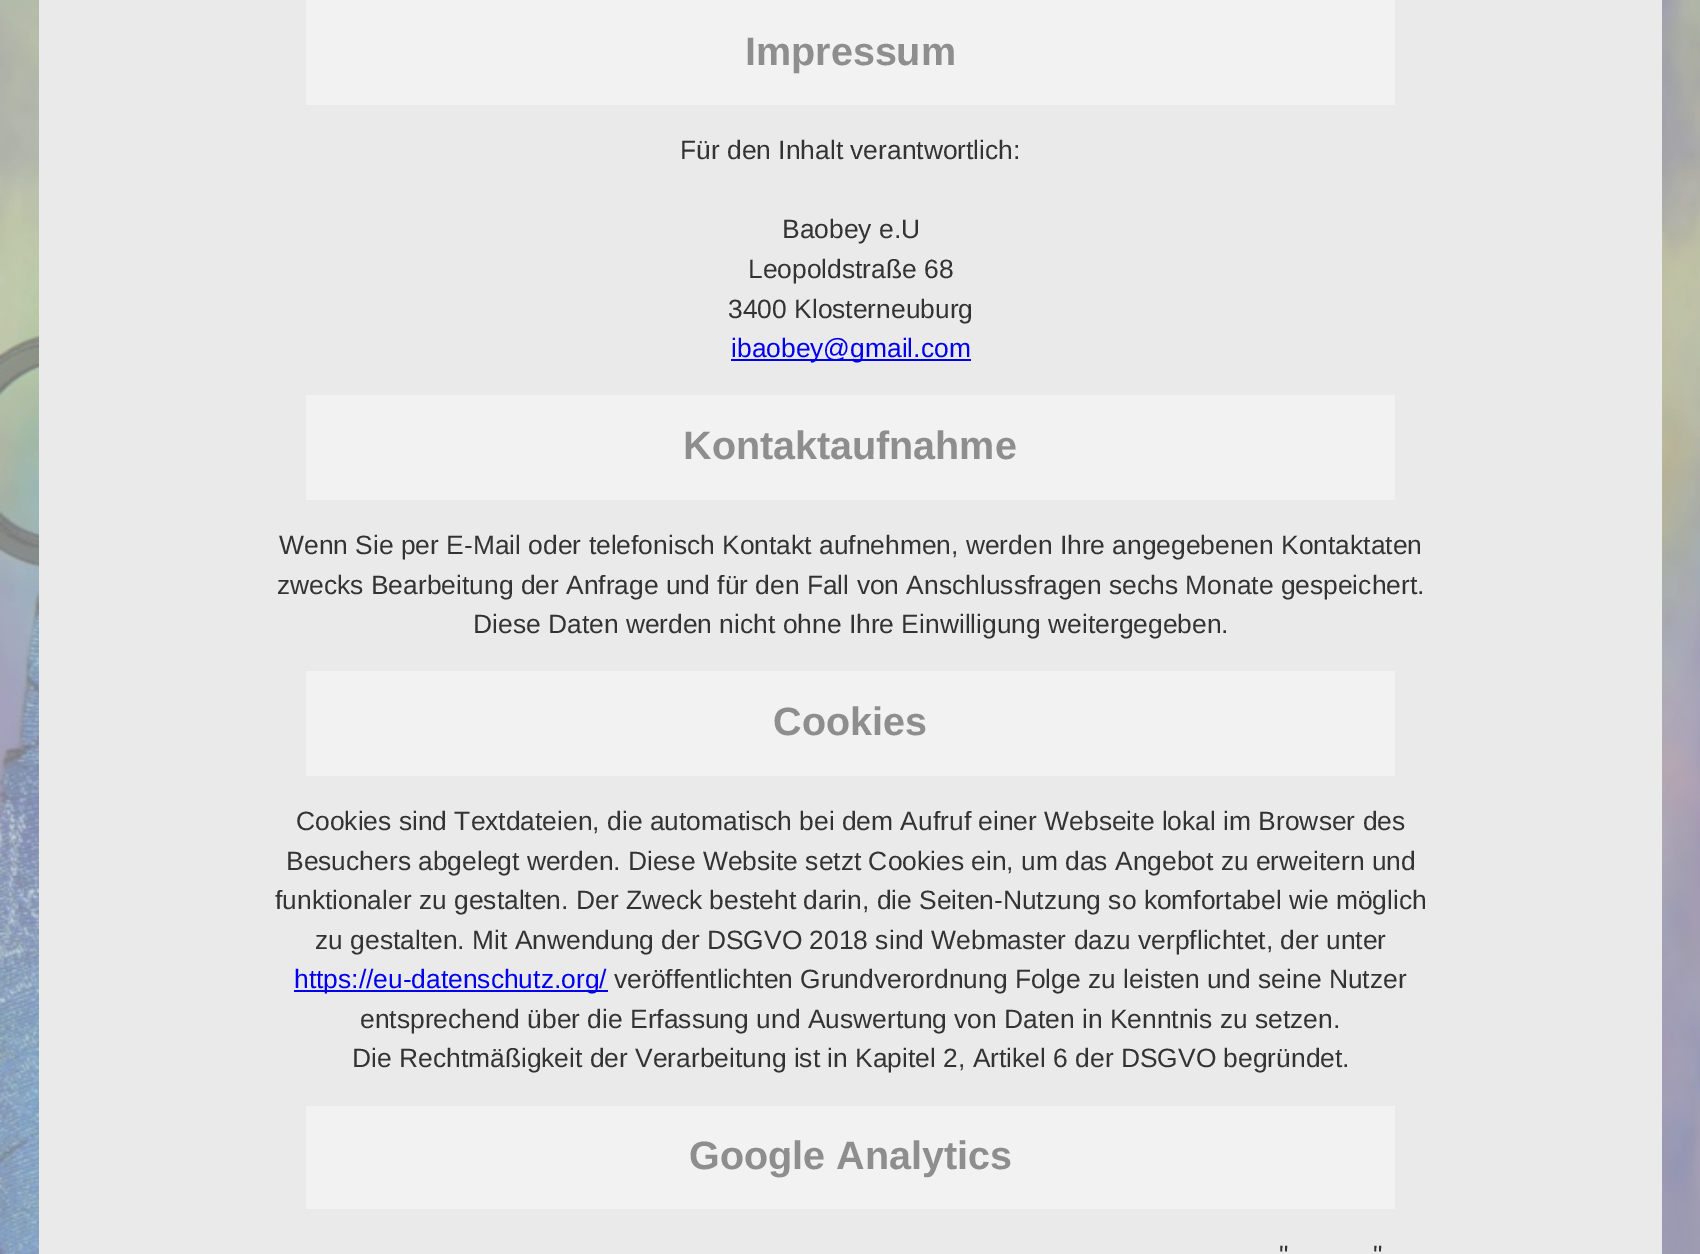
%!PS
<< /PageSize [1700 1254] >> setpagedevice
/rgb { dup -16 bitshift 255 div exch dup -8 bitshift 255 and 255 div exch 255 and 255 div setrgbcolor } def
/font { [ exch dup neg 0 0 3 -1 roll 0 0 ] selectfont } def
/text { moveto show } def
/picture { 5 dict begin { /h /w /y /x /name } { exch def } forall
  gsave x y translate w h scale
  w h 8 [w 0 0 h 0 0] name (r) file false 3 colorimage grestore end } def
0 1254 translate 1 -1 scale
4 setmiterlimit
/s1 { /LiberationSans-Bold 39.5 font 16#8E8E8E rgb } def
/s2 { /LiberationSans-Regular 26.4 font 16#333333 rgb } def
/s3 { /LiberationSans-Regular 26.4 font 16#0000EE rgb } def
16#CCCCCC rgb
0 0 1700 1254 rectfill
(pic1.raw) 0 0 1700 1254 picture
16#EAEAEA rgb
39 0 1623 1254 rectfill
16#F2F2F2 rgb
306 0 1089 105 rectfill
s1
(Impressum) 745 65 text
s2
(Für den Inhalt verantwortlich:) 680 159 text
(Baobey e.U) 782 238 text
(Leopoldstraße 68) 748 278 text
(3400 Klosterneuburg) 728 318 text
16#0000EE rgb
731 359 240 2 rectfill
(ibaobey@gmail.com) 731 357 text
16#F2F2F2 rgb
306 395 1089 105 rectfill
s1
(Kontaktaufnahme) 683 459 text
s2
(Wenn Sie per E-Mail oder telefonisch Kontakt aufnehmen, werden Ihre angegebenen Kontaktaten) 279 554 text
(zwecks Bearbeitung der Anfrage und für den Fall von Anschlussfragen sechs Monate gespeichert.) 277 594 text
(Diese Daten werden nicht ohne Ihre Einwilligung weitergegeben.) 473 633 text
16#F2F2F2 rgb
306 671 1089 105 rectfill
s1
(Cookies) 773 735 text
s2
(Cookies sind Textdateien, die automatisch bei dem Aufruf einer Webseite lokal im Browser des) 296 830 text
(Besuchers abgelegt werden. Diese Website setzt Cookies ein, um das Angebot zu erweitern und) 286 870 text
(funktionaler zu gestalten. Der Zweck besteht darin, die Seiten-Nutzung so komfortabel wie möglich) 275 909 text
(zu gestalten. Mit Anwendung der DSGVO 2018 sind Webmaster dazu verpflichtet, der unter) 315 949 text
16#0000EE rgb
294 990 314 2 rectfill
(https://eu-datenschutz.org/) 294 988 text
s2
(veröffentlichten Grundverordnung Folge zu leisten und seine Nutzer) 614 988 text
(entsprechend über die Erfassung und Auswertung von Daten in Kenntnis zu setzen.) 360 1028 text
(Die Rechtmäßigkeit der Verarbeitung ist in Kapitel 2, Artikel 6 der DSGVO begründet.) 352 1067 text
16#F2F2F2 rgb
306 1106 1089 103 rectfill
s1
(Google Analytics) 689 1169 text
s2
(") 1279 1264 text
(") 1373 1264 text
showpage
